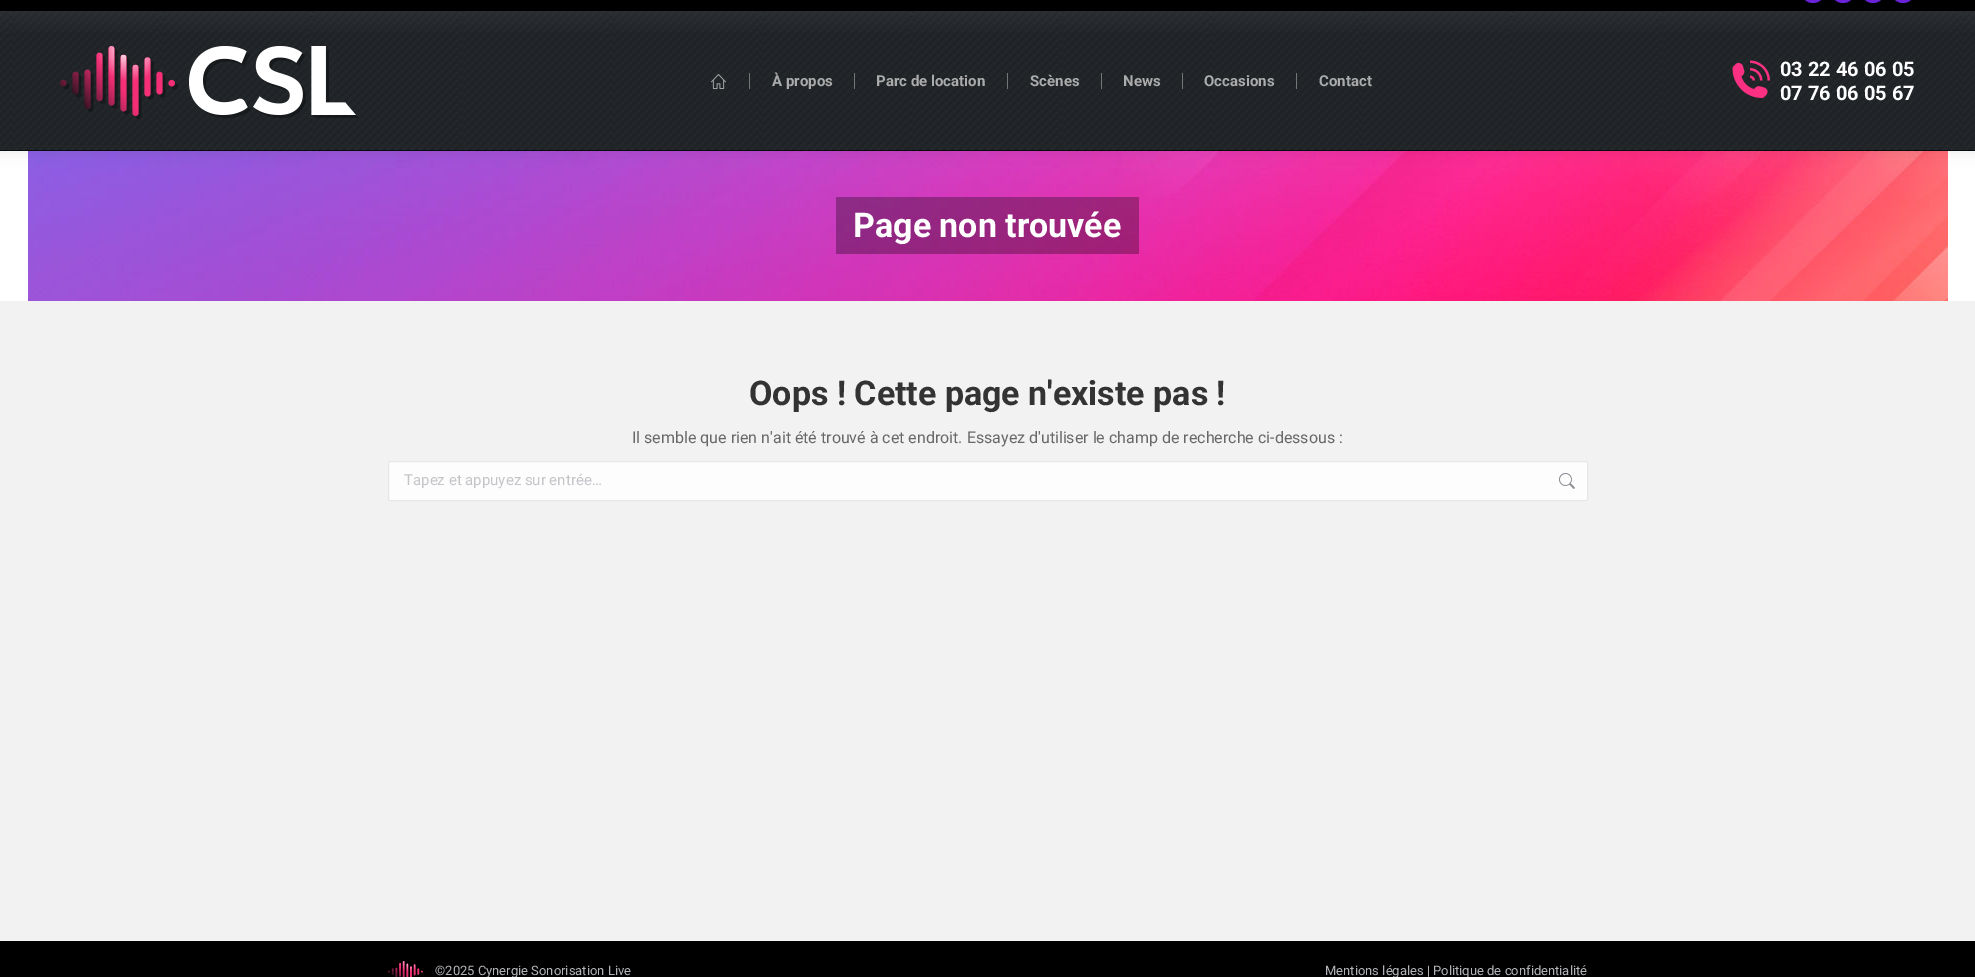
%!PS
<< /PageSize [1975 977] /PageUsesTransparency true >> setpagedevice
/rgb { dup -16 bitshift 255 div exch dup -8 bitshift 255 and 255 div exch 255 and 255 div setrgbcolor } def
/font { [ exch dup neg 0 0 3 -1 roll 0 0 ] selectfont } def
/text { moveto show } def
/alpha { dup .setfillconstantalpha .setstrokeconstantalpha } def
/roundrect { 5 dict begin { /r /h /w /y /x } { exch def } forall
  x r add y moveto x w add y 2 copy h add r arct x w add y h add x 1 index r arct
  x y h add x y r arct x y 2 copy exch w add exch r arct closepath end } def
/shadow { 12 dict begin { /a /b /q /h /w /y /x } { exch def } forall gsave /was 0 def
  9 -2 -9 { dup b mul 4 div /e exch def 1 sub .425 mul 2.718 exch exp 1 add a .99 .min exch div /now exch def
    1 1 now sub 1 was sub div sub alpha /was now def
    w h .min e 2 mul add 0 gt { x e sub y e sub w e 2 mul add h e 2 mul add
      q e add b .6 mul add w h .min 2 div e add .min 0 .max roundrect fill } if } for grestore end } def
/picture { 5 dict begin { /h /w /y /x /name } { exch def } forall
  gsave x y translate w h scale
  w h 8 [w 0 0 h 0 0] name (r) file false 3 colorimage grestore end } def
0 .pushpdf14devicefilter
0 977 translate 1 -1 scale
4 setmiterlimit
/s1 { /Roboto-Bold 15 font 16#ABABAB rgb } def
/s2 { /Roboto-Bold 20 font 16#FFFFFF rgb } def
/s3 { /Roboto-Bold 34 font 16#FFFFFF rgb } def
/s4 { /Roboto-Bold 34 font 16#333333 rgb } def
/s5 { /Roboto-Regular 16 font 16#686868 rgb } def
/s6 { /Roboto-Regular 15 font 16#C4C5C9 rgb } def
/s7 { /Roboto-Regular 13 font 16#B1B4B8 rgb } def
16#F2F2F2 rgb
0 0 1975 977 rectfill
16#FFFFFF rgb
0 151 1975 150 rectfill
(pic5.raw) 28 151 1920 150 picture
16#000000 rgb
-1 -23 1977 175 0 7.5 0.07 shadow
(pic1.raw) 0 11 1975 140 picture
0 0 1975 11 rectfill
16#6922D5 rgb
1801 -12 24 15 12 roundrect fill
1831 -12 24 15 12 roundrect fill
1861 -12 24 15 12 roundrect fill
1891 -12 24 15 12 roundrect fill
(pic2.raw) 60 46 299 73 picture
(pic3.raw) 711 74 15 15 picture
16#757575 rgb
749 73 1 16 rectfill
s1
(À propos) 772 86 text
16#757575 rgb
854 73 1 16 rectfill
s1
(Parc de location) 876 86 text
16#757575 rgb
1007 73 1 16 rectfill
s1
(Scènes) 1030 86 text
16#757575 rgb
1101 73 1 16 rectfill
s1
(News) 1123 86 text
16#757575 rgb
1182 73 1 16 rectfill
s1
(Occasions) 1204 86 text
16#757575 rgb
1296 73 1 16 rectfill
s1
(Contact) 1319 86 text
(pic4.raw) 1732 60 38 38 picture
s2
(03 22 46 06 05) 1780 76 text
(07 76 06 05 67) 1780 100 text
0.3 alpha
16#000000 rgb
836 197 303 57 rectfill
1 alpha
s3
(Page non trouvée) 853 237 text
s4
(Oops ! Cette page n'existe pas !) 749 405 text
s5
(Il semble que rien n'ait été trouvé à cet endroit. Essayez d'utiliser le champ de recherche ci-dessous :) 632 443 text
16#FDFDFD rgb
388.5 461.5 1199 39 1.5 roundrect gsave fill grestore
16#E7E7E7 rgb
stroke
s6
(Tapez et appuyez sur entrée…) 404 485 text
(pic6.raw) 1559 473 16 16 picture
16#000000 rgb
0 941 1975 36 rectfill
(pic7.raw) 388 961 35 16 picture
s7
(©2025 Cynergie Sonorisation Live) 435 975 text
(Mentions légales | Politique de confidentialité) 1325 975 text
.poppdf14devicefilter showpage
